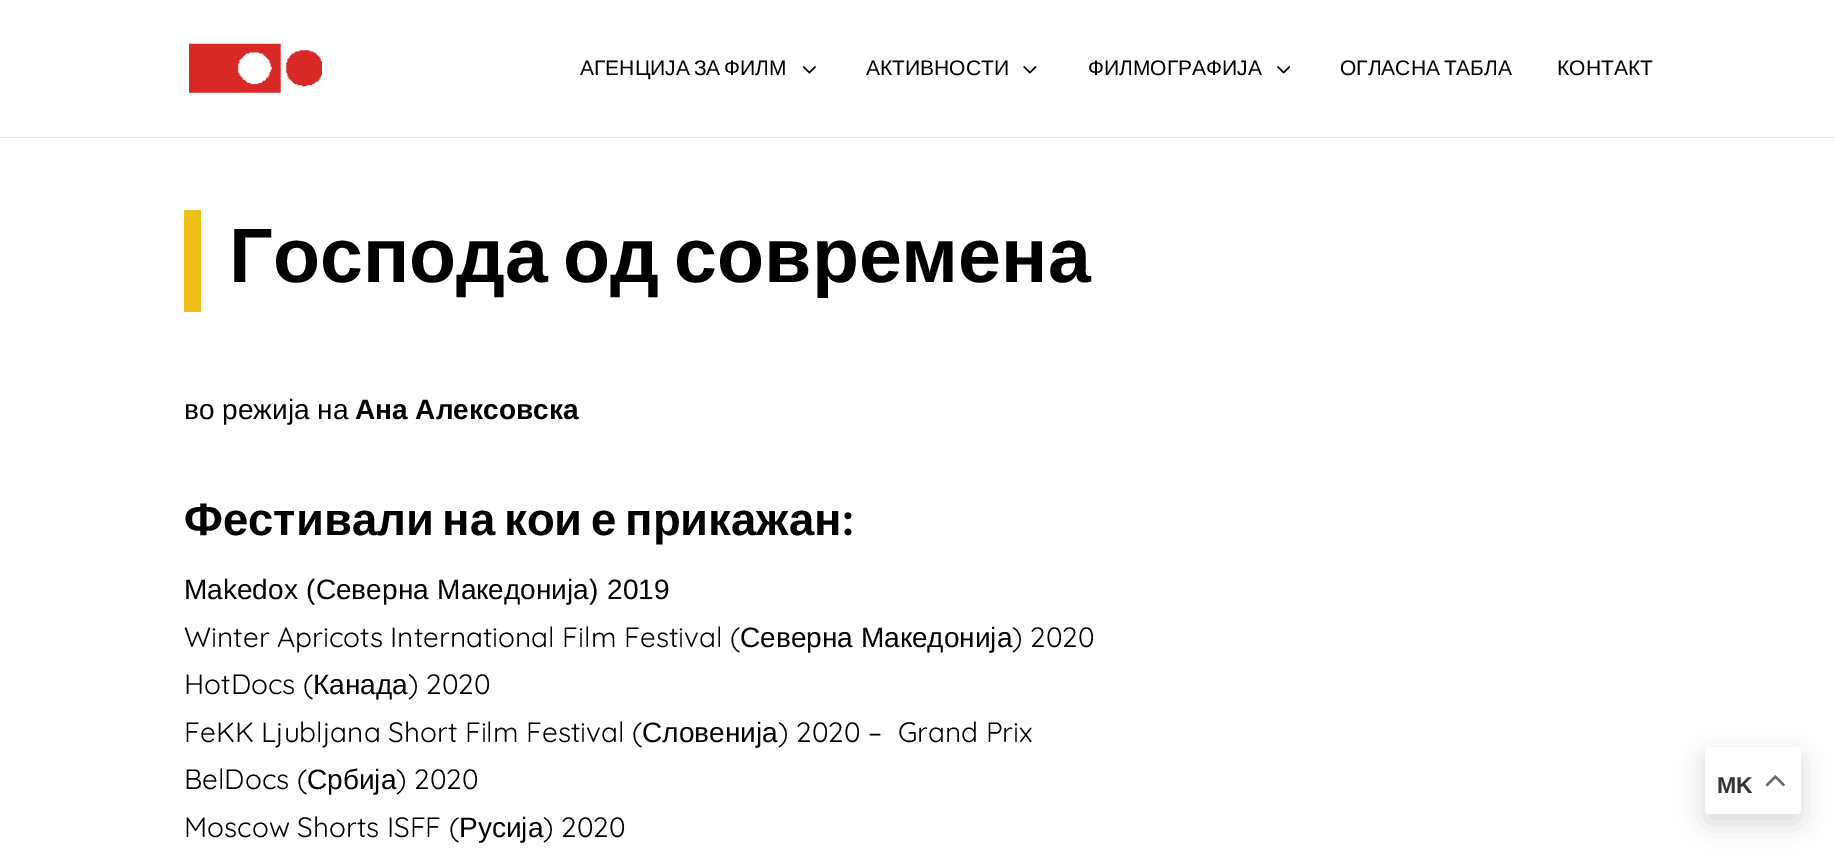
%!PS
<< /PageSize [1835 862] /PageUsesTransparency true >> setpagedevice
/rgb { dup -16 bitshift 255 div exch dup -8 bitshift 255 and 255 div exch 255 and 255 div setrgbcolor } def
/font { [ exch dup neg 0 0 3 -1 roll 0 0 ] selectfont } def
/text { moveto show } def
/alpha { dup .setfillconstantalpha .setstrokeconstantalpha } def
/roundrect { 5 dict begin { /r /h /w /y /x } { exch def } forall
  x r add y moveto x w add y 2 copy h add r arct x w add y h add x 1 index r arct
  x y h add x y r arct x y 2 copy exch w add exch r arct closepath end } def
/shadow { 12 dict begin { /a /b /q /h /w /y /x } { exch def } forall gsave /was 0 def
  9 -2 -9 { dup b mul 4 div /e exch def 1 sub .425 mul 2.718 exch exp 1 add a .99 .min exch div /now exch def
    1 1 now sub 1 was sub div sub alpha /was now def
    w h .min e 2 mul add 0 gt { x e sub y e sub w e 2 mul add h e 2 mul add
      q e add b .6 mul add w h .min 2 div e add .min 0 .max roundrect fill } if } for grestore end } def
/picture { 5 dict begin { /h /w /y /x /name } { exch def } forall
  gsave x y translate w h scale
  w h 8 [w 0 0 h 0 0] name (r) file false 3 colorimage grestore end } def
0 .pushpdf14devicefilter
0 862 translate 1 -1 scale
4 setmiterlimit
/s1 { /LiberationSans-Regular 21 font 16#000000 rgb } def
/s2 { /LiberationSans-Regular 28 font 16#000000 rgb } def
/s3 { /LiberationSans-Bold 28 font 16#000000 rgb } def
/s4 { /Lato-Bold 45.5 font 16#000000 rgb } def
/s5 { /Quicksand-Regular 28 font 16#000000 rgb } def
/s6 { /LiberationSans-Bold 23 font 16#333333 rgb } def
16#FFFFFF rgb
0 0 1835 862 rectfill
16#E6E6E6 rgb
0 136 moveto 0 138 lineto 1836 138 lineto 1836 2 lineto 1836 136 lineto closepath fill
16#FFFFFF rgb
0 136 1835 1 rectfill
(pic1.raw) 189 43 133 50 picture
/LiberationSans-Regular 21 font
16#000000 rgb
580 75 moveto -2 0 32 (АГЕНЦИЈА ЗА ФИЛМ) widthshow
(pic2.raw) 802 66 14 8 picture
(АКТИВНОСТИ) 866 75 text
(pic3.raw) 1023 66 14 8 picture
(ФИЛМОГРАФИЈА) 1088 75 text
(pic4.raw) 1277 66 14 8 picture
1340 75 moveto -2 0 32 (ОГЛАСНА ТАБЛА) widthshow
(КОНТАКТ) 1557 75 text
16#F1BF1A rgb
184 210 17 102 rectfill
/LiberationSans-Bold 77 font
16#000000 rgb
229 282 moveto -6 0 32 (Господа од современа) widthshow
s2
(во режија на) 184 419 text
s3
(Ана Алексовска) 355 419 text
/LiberationSans-Bold 45.5 font
184 535 moveto -4 0 32 (Фестивали на кои е прикажан) widthshow
s4
(:) 842 535 text
/LiberationSans-Regular 28 font
184 599 moveto 1 0 32 (Makedox \(Северна Македонија\) 2019) widthshow
s5
(Winter Apricots International Film Festival \() 184 647 text
s2
(Северна Македонија) 740 647 text
s5
(\) 2020) 1012 647 text
(HotDocs \() 184 694 text
s2
(Канада) 313 694 text
s5
(\) 2020) 408 694 text
(FeKK Ljubljana Short Film Festival \() 184 742 text
s2
(Словенија) 642 742 text
s5
(\) 2020 –  Grand Prix) 778 742 text
(BelDocs \() 184 789 text
s2
(Србија) 307 789 text
s5
(\) 2020) 396 789 text
(Moscow Shorts ISFF \() 184 837 text
s2
(Русија) 459 837 text
s5
(\) 2020) 543 837 text
1705 756 96 67 4 13 0.15 shadow
16#FFFFFF rgb
1705 747 96 67 4 roundrect fill
s6
(MK) 1717 793 text
(pic5.raw) 1766 775 19 12 picture
.poppdf14devicefilter showpage
